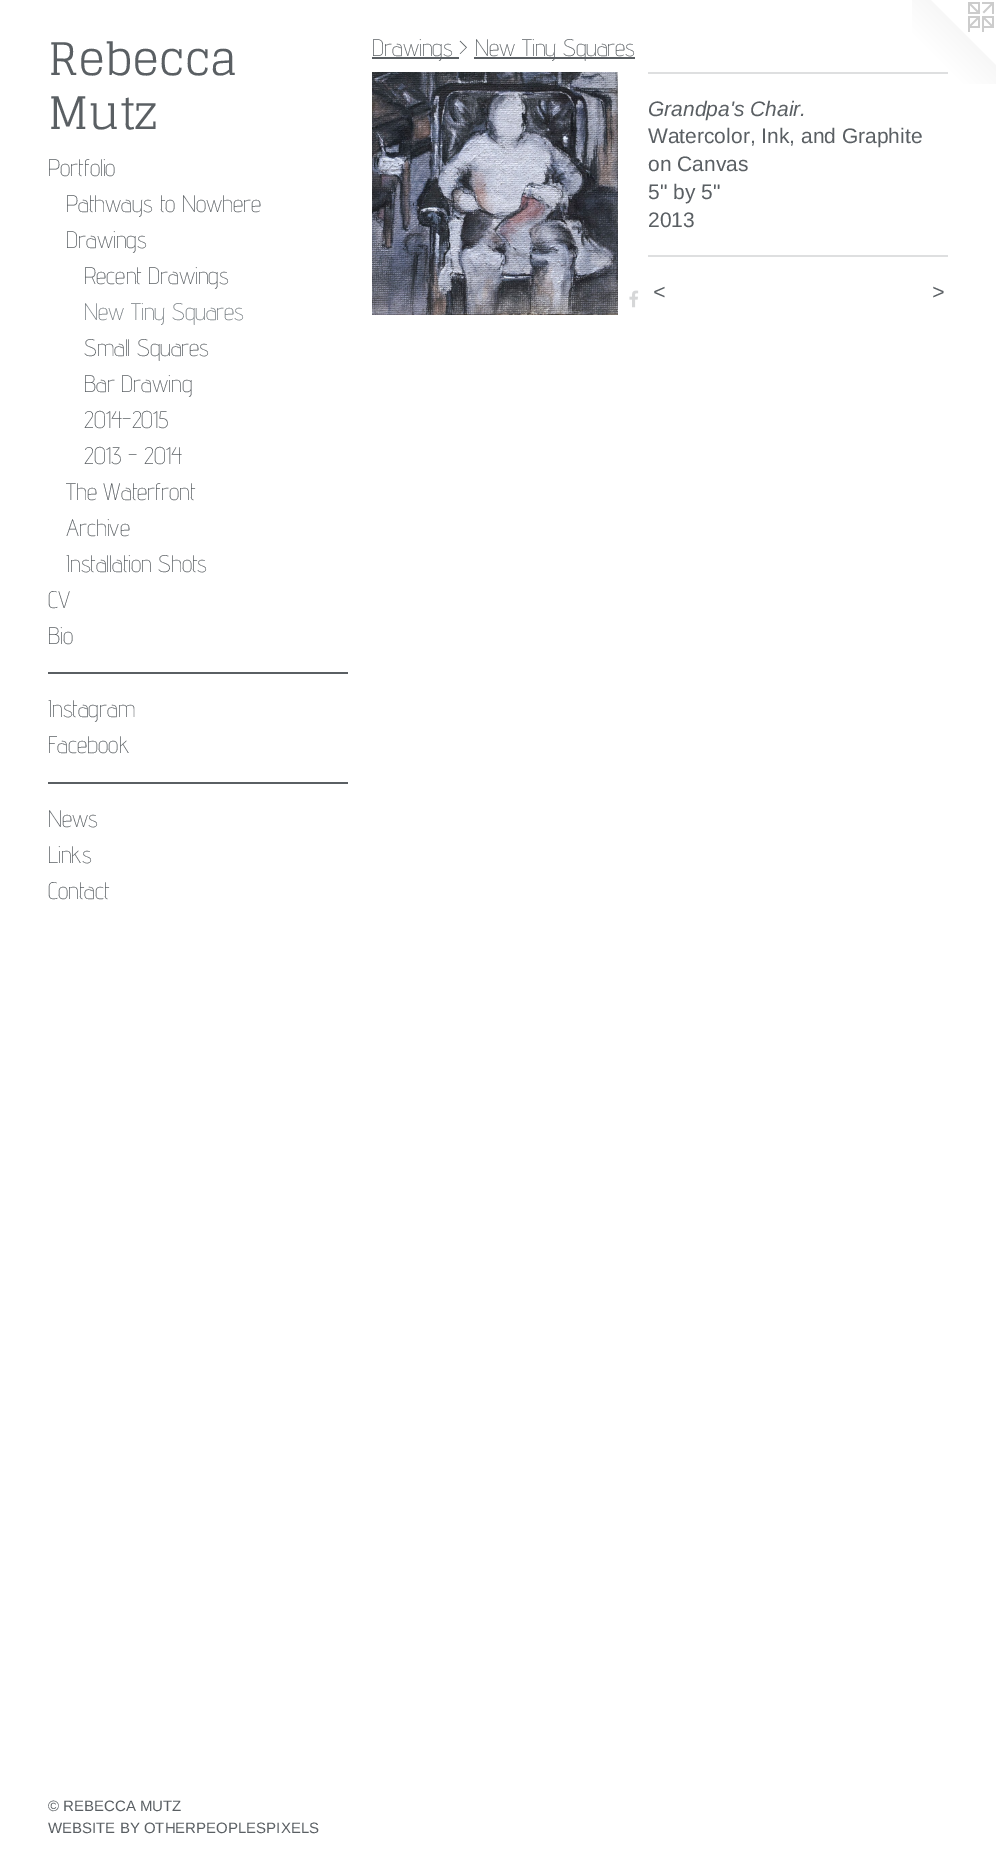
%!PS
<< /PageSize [996 1873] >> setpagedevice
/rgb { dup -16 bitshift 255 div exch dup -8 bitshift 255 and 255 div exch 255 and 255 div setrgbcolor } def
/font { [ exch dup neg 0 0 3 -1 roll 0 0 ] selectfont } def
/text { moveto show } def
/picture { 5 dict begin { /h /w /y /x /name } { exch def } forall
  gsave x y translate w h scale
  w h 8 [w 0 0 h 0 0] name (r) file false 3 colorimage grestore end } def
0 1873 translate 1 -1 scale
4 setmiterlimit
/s1 { /Glegoo-Regular 45 font 16#5A5F63 rgb } def
/s2 { /AdventPro-ExtraLight 24 font 16#5A5F63 rgb } def
/s3 { /AdventPro-ExtraLight 24 font 16#72797E rgb } def
/s4 { /LiberationSans-Regular 15 font 16#5A5F63 rgb } def
/s5 { /LiberationSans-Italic 21 font 16#5A5F63 rgb } def
/s6 { /LiberationSans-Regular 21 font 16#5A5F63 rgb } def
16#FFFFFF rgb
0 0 996 1873 rectfill
s1
(Rebecca) 48 75 text
(Mutz) 48 129 text
s2
(Portfolio) 48 176 text
(Pathways to Nowhere) 66 212 text
(Drawings) 66 248 text
(Recent Drawings) 84 284 text
s3
(New Tiny Squares) 84 320 text
s2
(Small Squares) 84 356 text
(Bar Drawing) 84 392 text
(2014-2015) 84 428 text
(2013 - 2014) 84 464 text
(The Waterfront) 66 500 text
(Archive) 66 536 text
(Installation Shots) 66 572 text
(CV) 48 608 text
(Bio) 48 644 text
48 672 300 2 rectfill
(Instagram) 48 717 text
(Facebook) 48 753 text
48 782 300 2 rectfill
(News) 48 827 text
(Links) 48 863 text
(Contact) 48 899 text
s4
(© REBECCA MUTZ) 48 1811 text
(WEBSITE BY OTHERPEOPLESPIXELS) 48 1833 text
372 57 87 2 rectfill
s2
(Drawings >) 372 56 text
474 57 161 2 rectfill
(New Tiny Squares) 475 56 text
(pic1.raw) 372 72 246 243 picture
(pic2.raw) 629 290 10 18 picture
(pic3.raw) 912 0 84 84 picture
16#DEDFE0 rgb
648 72 300 2 rectfill
s5
(Grandpa's Chair.) 648 116 text
s6
(Watercolor, Ink, and Graphite) 648 143 text
(on Canvas) 648 171 text
(5" by 5") 648 199 text
(2013) 648 227 text
16#DEDFE0 rgb
648 255 300 2 rectfill
/LiberationSans-Italic 21 font
16#5A5F63 rgb
653 299 moveto 2 0 (<) ashow
932 299 moveto 2 0 (>) ashow
showpage
